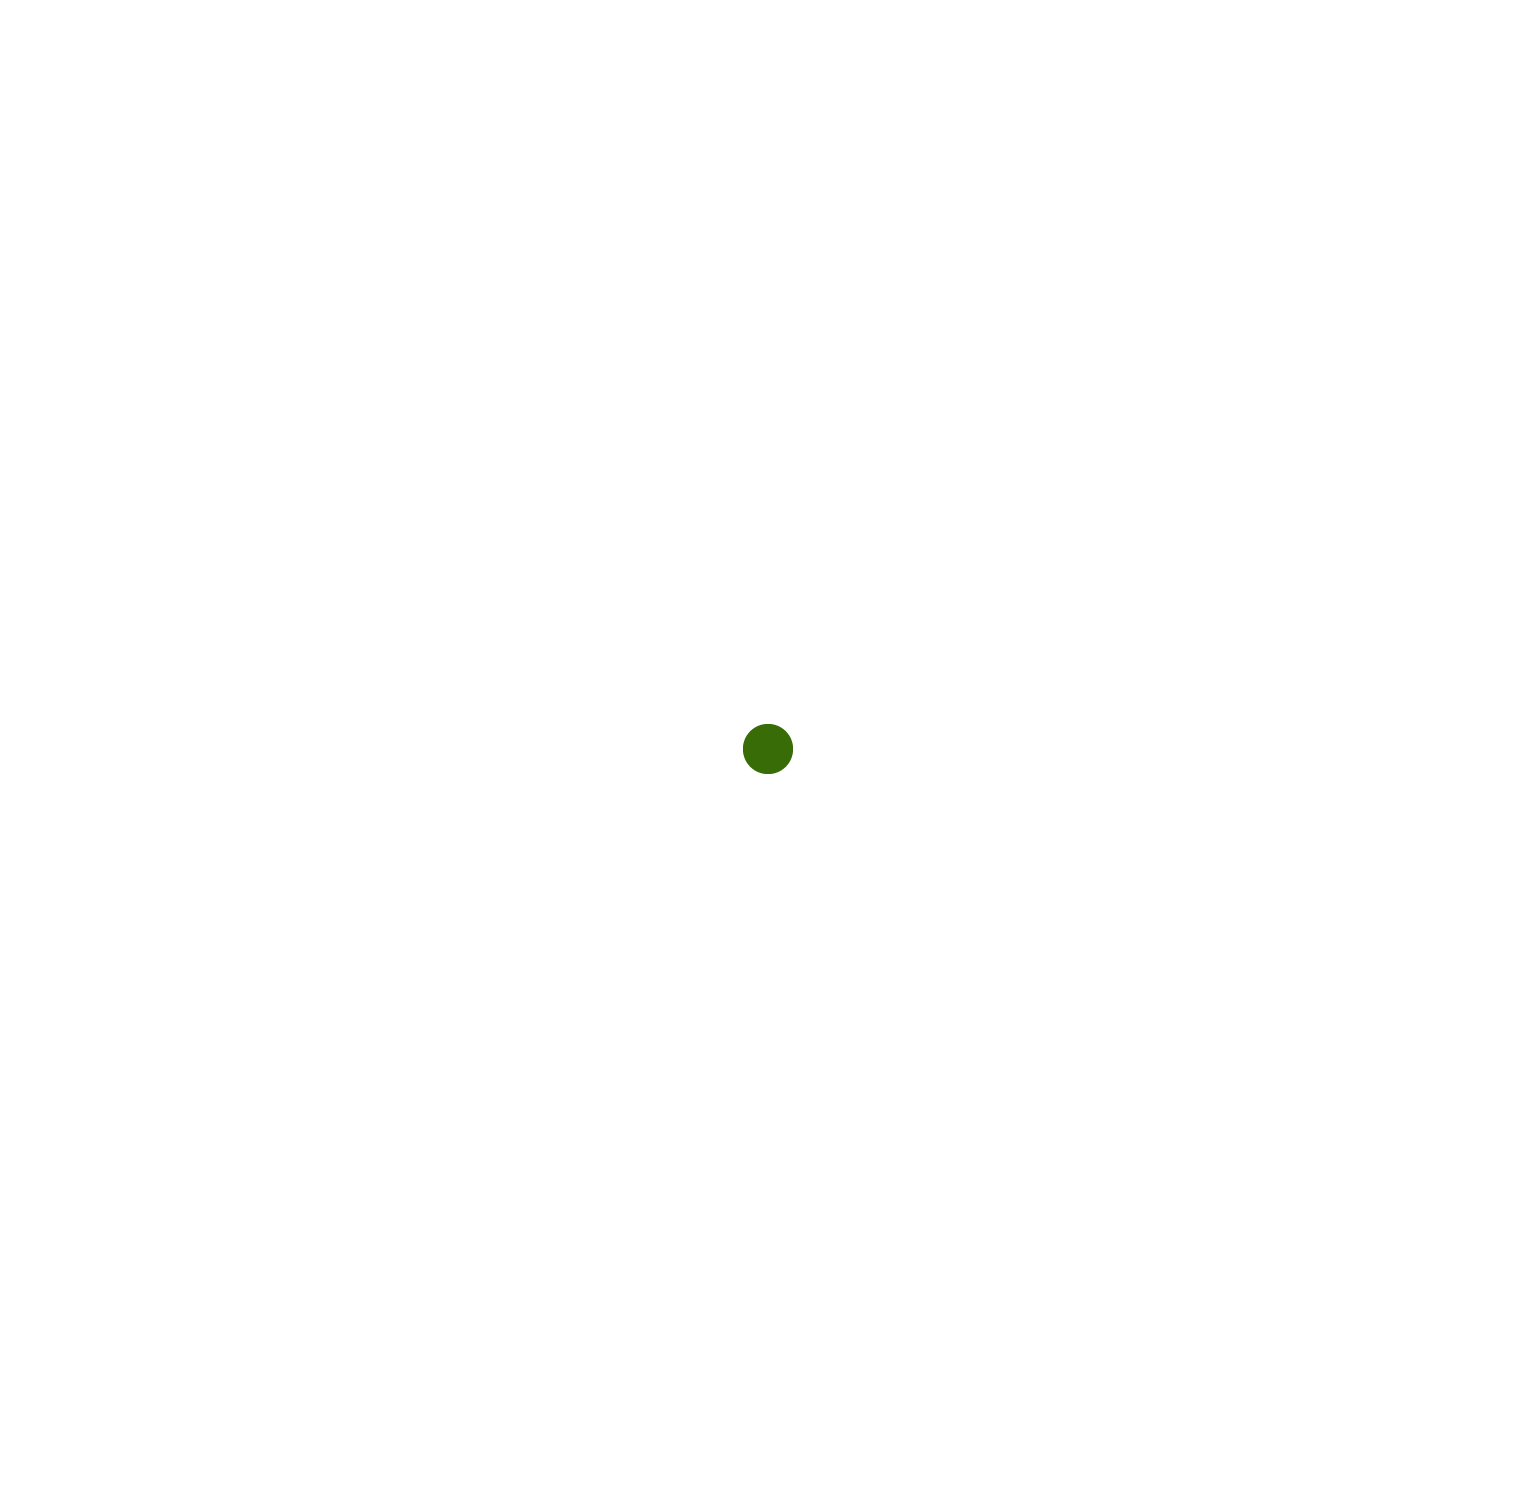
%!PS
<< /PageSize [1535 1496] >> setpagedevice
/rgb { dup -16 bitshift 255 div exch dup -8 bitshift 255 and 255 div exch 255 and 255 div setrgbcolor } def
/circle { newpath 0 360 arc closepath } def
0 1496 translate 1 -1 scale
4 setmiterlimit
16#FFFFFF rgb
0 0 1535 1496 rectfill
16#376C06 rgb
768 749 25 circle fill
showpage
